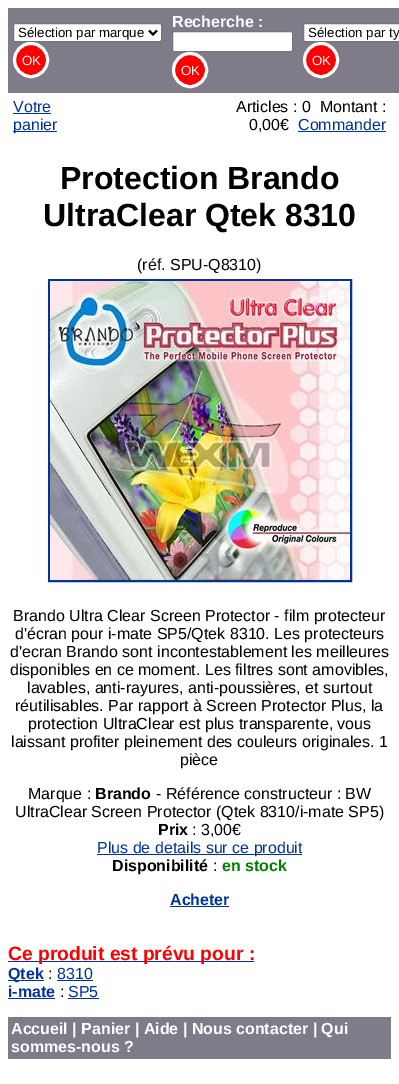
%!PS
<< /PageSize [399 1084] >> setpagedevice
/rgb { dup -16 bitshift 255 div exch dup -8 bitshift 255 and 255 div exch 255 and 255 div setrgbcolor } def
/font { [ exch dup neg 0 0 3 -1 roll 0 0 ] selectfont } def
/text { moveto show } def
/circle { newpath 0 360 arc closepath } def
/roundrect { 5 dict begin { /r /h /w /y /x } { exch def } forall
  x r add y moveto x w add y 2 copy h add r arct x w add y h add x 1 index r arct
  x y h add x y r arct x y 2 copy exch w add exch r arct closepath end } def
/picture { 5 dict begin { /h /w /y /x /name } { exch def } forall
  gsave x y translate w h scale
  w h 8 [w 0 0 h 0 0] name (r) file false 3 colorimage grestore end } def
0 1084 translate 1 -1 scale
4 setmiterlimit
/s1 { /LiberationSans-Regular 13.25 font 16#000000 rgb } def
/s2 { /LiberationSans-Regular 13.25 font 16#FFFFFF rgb } def
/s3 { /LiberationSans-Bold 16 font 16#FFFFFF rgb } def
/s4 { /LiberationSans-Regular 16 font 16#003399 rgb } def
/s5 { /LiberationSans-Regular 16 font 16#000000 rgb } def
/s6 { /LiberationSans-Bold 32 font 16#000000 rgb } def
/s7 { /LiberationSans-Bold 16 font 16#000000 rgb } def
/s8 { /LiberationSans-Bold 16 font 16#008000 rgb } def
/s9 { /LiberationSans-Bold 16 font 16#003399 rgb } def
/s10 { /LiberationSans-Bold 19.25 font 16#FF0000 rgb } def
16#FFFFFF rgb
0 0 399 1084 rectfill
16#7F7B89 rgb
8 8 391 85 rectfill
16#FFFFFF rgb
13.5 23.5 148 18 1.5 roundrect gsave fill grestore
16#767676 rgb
stroke
16#000000 rgb
2 setlinewidth
149 30.5 moveto 153 34.5 lineto 157 30.5 lineto stroke
s1
(Sélection par marque) 18 37 text
16#FF0000 rgb
31 60 16.5 circle gsave fill grestore
16#FFFFFF rgb
3 setlinewidth
stroke
(OK) 22 65 text
s3
(Recherche :) 172 27 text
172.5 31.5 120 20 1.5 roundrect gsave fill grestore
16#767676 rgb
1 setlinewidth
stroke
16#FF0000 rgb
190 70 16.5 circle gsave fill grestore
16#FFFFFF rgb
3 setlinewidth
stroke
s2
(OK) 181 75 text
303.5 23.5 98 18 1.5 roundrect gsave fill grestore
16#767676 rgb
1 setlinewidth
stroke
s1
(Sélection par ty) 308 37 text
16#FF0000 rgb
321 60 16.5 circle gsave fill grestore
16#FFFFFF rgb
3 setlinewidth
stroke
(OK) 312 65 text
s4
(Votre) 13 112 text
13 113 38 1 rectfill
13 131 44 1 rectfill
(panier) 13 130 text
s5
(Articles : 0  Montant :) 236 112 text
(0,00€) 249 130 text
s4
(Commander) 298 130 text
298 131 88 1 rectfill
s6
(Protection Brando) 60 189 text
(UltraClear Qtek 8310) 43 226 text
s5
(\(réf. SPU-Q8310\)) 137 270 text
16#003399 rgb
2 setlinewidth
49 280 302 301 rectstroke
(pic1.raw) 50 281 300 299 picture
s5
(Brando Ultra Clear Screen Protector - film protecteur) 13 621 text
(d'écran pour i-mate SP5/Qtek 8310. Les protecteurs) 15 639 text
(d'ecran Brando sont incontestablement les meilleures) 10 657 text
(disponibles en ce moment. Les filtres sont amovibles,) 10 675 text
(lavables, anti-rayures, anti-poussières, et surtout) 27 693 text
(réutilisables. Par rapport à Screen Protector Plus, la) 15 711 text
(protection UltraClear est plus transparente, vous) 28 729 text
(laissant profiter pleinement des couleurs originales. 1) 11 747 text
(pièce) 180 765 text
(Marque :) 28 799 text
s7
(Brando) 95 799 text
s5
(- Référence constructeur : BW) 156 799 text
(UltraClear Screen Protector \(Qtek 8310/i-mate SP5\)) 15 817 text
s7
(Prix) 158 835 text
s5
(: 3,00€) 192 835 text
16#003399 rgb
97 854 205 1 rectfill
(Plus de details sur ce produit) 97 853 text
s7
(Disponibilité) 112 871 text
s5
(:) 213 871 text
s8
(en stock) 222 871 text
s9
(Acheter) 170 905 text
170 906 59 1 rectfill
8 961 246 1 rectfill
s10
(Ce produit est prévu pour :) 8 960 text
16#003399 rgb
8 980 36 1 rectfill
s9
(Qtek) 8 979 text
s5
(:) 48 979 text
s4
(8310) 57 979 text
57 980 36 1 rectfill
s9
(i-mate) 8 997 text
8 998 47 1 rectfill
s5
(:) 60 997 text
s4
(SP5) 68 997 text
68 998 31 1 rectfill
16#7F7B89 rgb
8 1017 383 42 rectfill
s3
(Accueil | Panier | Aide | Nous contacter | Qui) 11 1034 text
(sommes-nous ?) 11 1052 text
showpage
